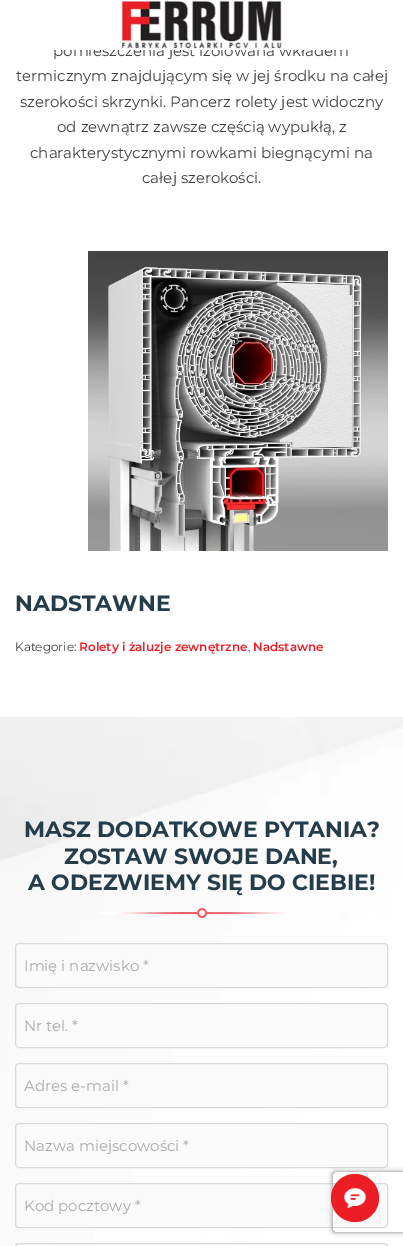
%!PS
<< /PageSize [403 1246] /PageUsesTransparency true >> setpagedevice
/rgb { dup -16 bitshift 255 div exch dup -8 bitshift 255 and 255 div exch 255 and 255 div setrgbcolor } def
/font { [ exch dup neg 0 0 3 -1 roll 0 0 ] selectfont } def
/text { moveto show } def
/alpha { dup .setfillconstantalpha .setstrokeconstantalpha } def
/circle { newpath 0 360 arc closepath } def
/roundrect { 5 dict begin { /r /h /w /y /x } { exch def } forall
  x r add y moveto x w add y 2 copy h add r arct x w add y h add x 1 index r arct
  x y h add x y r arct x y 2 copy exch w add exch r arct closepath end } def
/shadow { 12 dict begin { /a /b /q /h /w /y /x } { exch def } forall gsave /was 0 def
  9 -2 -9 { dup b mul 4 div /e exch def 1 sub .425 mul 2.718 exch exp 1 add a .99 .min exch div /now exch def
    1 1 now sub 1 was sub div sub alpha /was now def
    w h .min e 2 mul add 0 gt { x e sub y e sub w e 2 mul add h e 2 mul add
      q e add b .6 mul add w h .min 2 div e add .min 0 .max roundrect fill } if } for grestore end } def
/picture { 5 dict begin { /h /w /y /x /name } { exch def } forall
  gsave x y translate w h scale
  w h 8 [w 0 0 h 0 0] name (r) file false 3 colorimage grestore end } def
0 .pushpdf14devicefilter
0 1246 translate 1 -1 scale
4 setmiterlimit
/s1 { /Montserrat-Regular 15 font 16#404040 rgb } def
/s2 { /Montserrat-Bold 22 font 16#253D4A rgb } def
/s3 { /Montserrat-Regular 12 font 16#404040 rgb } def
/s4 { /Montserrat-SemiBold 12 font 16#EC1D25 rgb } def
/s5 { /Montserrat-Regular 15 font 16#AAAAAA rgb } def
16#FFFFFF rgb
0 0 403 1246 rectfill
s1
(pomieszczenia jest izolowana wkładem) 53 56 text
16#FFFFFF rgb
54 44 294 6 rectfill
(pic1.raw) 120 0 162 50 picture
s1
(termicznym znajdującym się w jej środku na całej) 16 81 text
(szerokości skrzynki. Pancerz rolety jest widoczny) 20 107 text
(od zewnątrz zawsze częścią wypukłą, z) 57 132 text
(charakterystycznymi rowkami biegnącymi na) 30 158 text
(całej szerokości.) 142 183 text
(pic2.raw) 88 251 300 300 picture
s2
(NADSTAWNE) 15 611 text
s3
(Kategorie:) 15 651 text
s4
(Rolety i żaluzje zewnętrzne) 79 651 text
s3
(,) 248 651 text
s4
(Nadstawne) 253 651 text
(pic3.raw) 0 717 403 529 picture
s2
(MASZ DODATKOWE PYTANIA?) 24 837 text
(ZOSTAW SWOJE DANE,) 64 864 text
(A ODEZWIEMY SIĘ DO CIEBIE!) 28 890 text
(pic4.raw) 99 908 188 10 picture
16#FAFAFA rgb
15.5 943.5 372 44 3.5 roundrect gsave fill grestore
16#D9D9D9 rgb
stroke
s5
(Imię i nazwisko *) 24 971 text
16#FAFAFA rgb
15.5 1003.5 372 44 3.5 roundrect gsave fill grestore
16#D9D9D9 rgb
stroke
s5
(Nr tel. *) 24 1031 text
16#FAFAFA rgb
15.5 1063.5 372 44 3.5 roundrect gsave fill grestore
16#D9D9D9 rgb
stroke
s5
(Adres e-mail *) 24 1091 text
16#FAFAFA rgb
15.5 1123.5 372 44 3.5 roundrect gsave fill grestore
16#D9D9D9 rgb
stroke
s5
(Nazwa miejscowości *) 24 1151 text
16#FAFAFA rgb
15.5 1183.5 372 44 3.5 roundrect gsave fill grestore
16#D9D9D9 rgb
stroke
s5
(Kod pocztowy *) 24 1211 text
16#FAFAFA rgb
15.5 1243.5 372 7 3.5 roundrect gsave fill grestore
16#D9D9D9 rgb
stroke
gsave
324 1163 moveto 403 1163 lineto 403 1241 lineto 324 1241 lineto closepath 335 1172 moveto 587 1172 lineto 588 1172 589 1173 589 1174 curveto 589 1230 lineto 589 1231 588 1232 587 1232 curveto 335 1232 lineto 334 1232 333 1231 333 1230 curveto 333 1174 lineto 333 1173 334 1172 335 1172 curveto closepath eoclip newpath
16#808080 rgb
333 1172 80 60 2 2.5 1 shadow
grestore
0.04 alpha
16#161A1E rgb
330.5 1173.5 49 49 rectstroke
1 alpha
16#EC1D25 rgb
355 1198 24 circle fill
(pic5.raw) 344 1188 22 20 picture
.poppdf14devicefilter showpage
